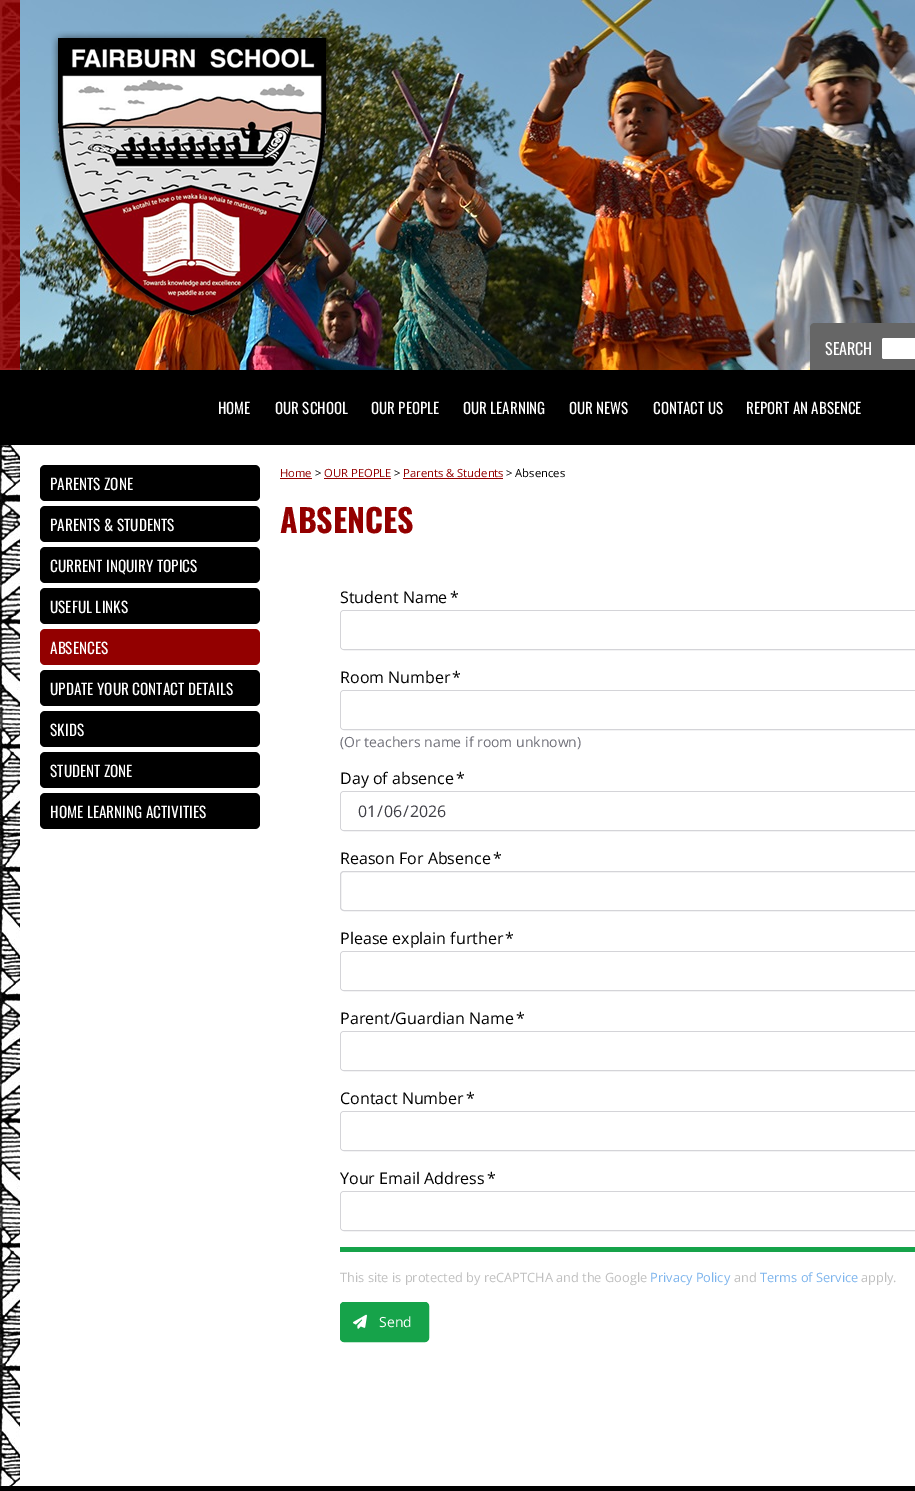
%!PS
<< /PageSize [915 1491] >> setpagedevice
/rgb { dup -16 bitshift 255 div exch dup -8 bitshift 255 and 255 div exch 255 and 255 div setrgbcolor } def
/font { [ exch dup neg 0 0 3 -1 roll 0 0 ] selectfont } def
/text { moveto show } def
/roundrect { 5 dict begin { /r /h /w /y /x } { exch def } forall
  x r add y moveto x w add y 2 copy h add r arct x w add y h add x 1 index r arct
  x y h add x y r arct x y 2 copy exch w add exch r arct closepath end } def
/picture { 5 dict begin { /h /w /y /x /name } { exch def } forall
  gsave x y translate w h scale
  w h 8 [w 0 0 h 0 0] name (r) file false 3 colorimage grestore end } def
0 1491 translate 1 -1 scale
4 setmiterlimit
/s1 { /Oswald-Regular 16 font 16#FFFFFF rgb } def
/s2 { /Oswald-Regular 15 font 16#FFFFFF rgb } def
/s3 { /Oswald-Regular 15.25 font 16#FFFFFF rgb } def
/s4 { /OpenSans-Regular 11.25 font 16#930000 rgb } def
/s5 { /OpenSans-Regular 11.25 font 16#000000 rgb } def
/s6 { /Oswald-Bold 32 font 16#930000 rgb } def
/s7 { /OpenSans-Regular 16 font 16#000000 rgb } def
/s8 { /OpenSans-Regular 14 font 16#71717A rgb } def
/s9 { /OpenSans-Regular 16 font 16#3F3F46 rgb } def
/s10 { /OpenSans-Regular 12.8 font 16#BFBFBF rgb } def
/s11 { /OpenSans-Regular 12.8 font 16#7CB4ED rgb } def
/s12 { /OpenSans-Regular 14 font 16#FFFFFF rgb } def
16#FFFFFF rgb
0 0 915 1491 rectfill
(pic1.raw) 0 0 20 370 picture
(pic2.raw) 20 0 895 370 picture
(pic3.raw) 51 31 283 293 picture
16#666666 rgb
815 323 moveto 915 323 lineto 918 323 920 325 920 328 curveto 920 370 lineto 810 370 lineto 810 328 lineto 810 325 812 323 815 323 curveto closepath fill
s1
(SEARCH) 825 355 text
882 338 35 21 2 roundrect fill
16#000000 rgb
0 370 915 75 rectfill
s2
(HOME) 218 414 text
(OUR SCHOOL) 275 414 text
(OUR PEOPLE) 371 414 text
(OUR LEARNING) 463 414 text
(OUR NEWS) 569 414 text
(CONTACT US) 653 414 text
(REPORT AN ABSENCE) 746 414 text
(pic4.raw) 0 445 20 1041 picture
16#000000 rgb
40 465 220 36 5 roundrect fill
s3
(PARENTS ZONE) 50 490 text
16#000000 rgb
40 506 220 36 5 roundrect fill
s3
(PARENTS & STUDENTS) 50 531 text
16#000000 rgb
40 547 220 36 5 roundrect fill
s3
(CURRENT INQUIRY TOPICS) 50 572 text
16#000000 rgb
40 588 220 36 5 roundrect fill
s3
(USEFUL LINKS) 50 613 text
16#930000 rgb
40 629 220 36 5 roundrect fill
s3
(ABSENCES) 50 654 text
16#000000 rgb
40 670 220 36 5 roundrect fill
s3
(UPDATE YOUR CONTACT DETAILS) 50 695 text
16#000000 rgb
40 711 220 36 5 roundrect fill
s3
(SKIDS) 50 736 text
16#000000 rgb
40 752 220 36 5 roundrect fill
s3
(STUDENT ZONE) 50 777 text
16#000000 rgb
40 793 220 36 5 roundrect fill
s3
(HOME LEARNING ACTIVITIES) 50 818 text
s4
(Home) 280 477 text
280 478 32 1 rectfill
s5
(>) 315 477 text
s4
(OUR PEOPLE) 324 477 text
324 478 67 1 rectfill
s5
(>) 394 477 text
s4
(Parents & Students) 403 477 text
403 478 100 1 rectfill
s5
(> Absences) 506 477 text
s6
(ABSENCES) 280 533 text
s7
(Student Name) 340 603 text
(*) 450 603 text
16#D4D4D8 rgb
340.5 610.5 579 39 3.5 roundrect stroke
16#FFFFFF rgb
341 611 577 38 3 roundrect fill
s7
(Room Number) 340 683 text
(*) 452 683 text
16#D4D4D8 rgb
340.5 690.5 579 39 3.5 roundrect stroke
16#FFFFFF rgb
341 691 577 38 3 roundrect fill
s8
(\(Or teachers name if room unknown\)) 340 747 text
s7
(Day of absence) 340 784 text
(*) 456 784 text
16#D4D4D8 rgb
340.5 791.5 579 39 3.5 roundrect stroke
16#FFFFFF rgb
341 792 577 38 3 roundrect fill
s9
(01) 358 817 text
(/) 377 817 text
(06) 384 817 text
(/) 403 817 text
(2026) 410 817 text
s7
(Reason For Absence) 340 864 text
(*) 493 864 text
16#D4D4D8 rgb
340.5 871.5 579 39 3.5 roundrect stroke
s7
(Please explain further) 340 944 text
(*) 505 944 text
16#D4D4D8 rgb
340.5 951.5 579 39 3.5 roundrect stroke
16#FFFFFF rgb
341 952 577 38 3 roundrect fill
s7
(Parent/Guardian Name) 340 1024 text
(*) 516 1024 text
16#D4D4D8 rgb
340.5 1031.5 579 39 3.5 roundrect stroke
16#FFFFFF rgb
341 1032 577 38 3 roundrect fill
s7
(Contact Number) 340 1104 text
(*) 466 1104 text
16#D4D4D8 rgb
340.5 1111.5 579 39 3.5 roundrect stroke
16#FFFFFF rgb
341 1112 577 38 3 roundrect fill
s7
(Your Email Address) 340 1184 text
(*) 487 1184 text
16#D4D4D8 rgb
340.5 1191.5 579 39 3.5 roundrect stroke
16#FFFFFF rgb
341 1192 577 38 3 roundrect fill
16#16A34A rgb
340 1247 575 5 rectfill
s10
(This site is protected by reCAPTCHA and the Google) 340 1282 text
s11
(Privacy Policy) 650 1282 text
s10
(and) 734 1282 text
s11
(Terms of Service) 760 1282 text
s10
(apply.) 861 1282 text
16#16A34A rgb
340.5 1302.5 88 39 3.5 roundrect gsave fill grestore
stroke
(pic5.raw) 353 1314 14 15 picture
s12
(Send) 379 1327 text
16#000000 rgb
0 1486 915 5 rectfill
showpage
